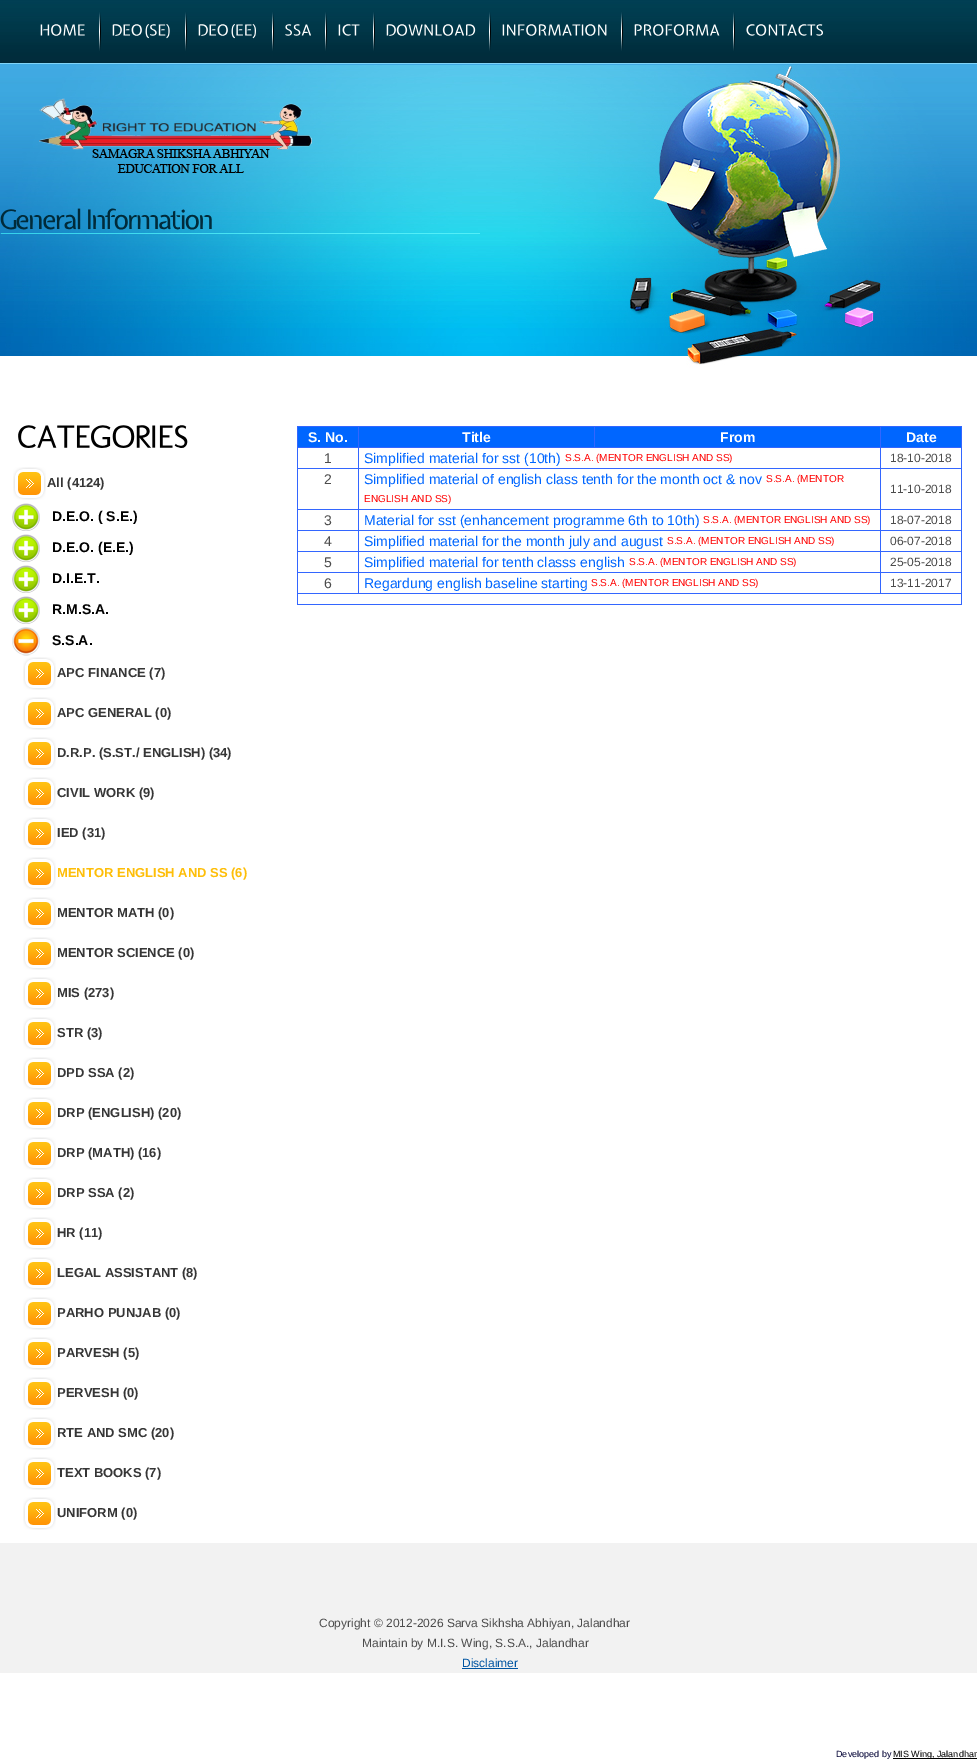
%!PS
<< /PageSize [977 1764] >> setpagedevice
/rgb { dup -16 bitshift 255 div exch dup -8 bitshift 255 and 255 div exch 255 and 255 div setrgbcolor } def
/font { [ exch dup neg 0 0 3 -1 roll 0 0 ] selectfont } def
/text { moveto show } def
/picture { 5 dict begin { /h /w /y /x /name } { exch def } forall
  gsave x y translate w h scale
  w h 8 [w 0 0 h 0 0] name (r) file false 3 colorimage grestore end } def
0 1764 translate 1 -1 scale
4 setmiterlimit
/s1 { /LiberationSans-Bold 13 font 16#363636 rgb } def
/s2 { /LiberationSans-Bold 14 font 16#000000 rgb } def
/s3 { /LiberationSans-Bold 13 font 16#FEBE08 rgb } def
/s4 { /LiberationSans-Bold 14 font 16#FFFFFF rgb } def
/s5 { /LiberationSans-Regular 14 font 16#4C4C4C rgb } def
/s6 { /LiberationSans-Regular 14 font 16#0066FF rgb } def
/s7 { /LiberationSans-Regular 10 font 16#FF0000 rgb } def
/s8 { /LiberationSans-Regular 12 font 16#4C4C4C rgb } def
/s9 { /LiberationSans-Regular 12 font 16#0055A2 rgb } def
/s10 { /LiberationSans-Regular 9 font 16#000033 rgb } def
/s11 { /LiberationSans-Regular 9 font 16#000000 rgb } def
16#FFFFFF rgb
0 0 977 1764 rectfill
(pic1.raw) 0 0 977 64 picture
(pic2.raw) 0 64 977 312 picture
(pic3.raw) 99 12 2 39 picture
(pic4.raw) 40 24 45 12 picture
(pic3.raw) 185 12 2 39 picture
(pic5.raw) 112 24 58 15 picture
(pic3.raw) 272 12 2 39 picture
(pic6.raw) 198 24 58 15 picture
(pic3.raw) 325 12 2 39 picture
(pic7.raw) 285 24 26 12 picture
(pic3.raw) 373 12 2 39 picture
(pic8.raw) 338 24 22 12 picture
(pic3.raw) 489 12 2 39 picture
(pic9.raw) 386 24 90 12 picture
(pic3.raw) 621 12 2 39 picture
(pic10.raw) 502 24 105 12 picture
(pic3.raw) 733 12 2 39 picture
(pic11.raw) 634 24 86 12 picture
(pic12.raw) 746 24 77 12 picture
(pic13.raw) 39 98 273 75 picture
(pic14.raw) 0 233 480 1 picture
(pic15.raw) 0 208 81 22 picture
(pic16.raw) 88 208 124 22 picture
16#F2F2F2 rgb
0 1543 977 130 rectfill
(pic17.raw) 18 425 170 23 picture
(pic18.raw) 13 467 33 33 picture
s1
(All \(4124\)) 47 487 text
(pic19.raw) 12 503 28 28 picture
s2
(D.E.O. \( S.E.\)) 52 521 text
(pic19.raw) 12 534 28 28 picture
(D.E.O. \(E.E.\)) 52 552 text
(pic19.raw) 12 565 28 28 picture
(D.I.E.T.) 52 583 text
(pic19.raw) 12 596 28 28 picture
(R.M.S.A.) 52 614 text
(pic20.raw) 12 627 28 29 picture
(S.S.A.) 52 645 text
(pic18.raw) 23 657 33 33 picture
s1
(APC FINANCE \(7\)) 57 677 text
(pic18.raw) 23 697 33 33 picture
(APC GENERAL \(0\)) 57 717 text
(pic18.raw) 23 737 33 33 picture
(D.R.P. \(S.ST./ ENGLISH\) \(34\)) 57 757 text
(pic18.raw) 23 777 33 33 picture
(CIVIL WORK \(9\)) 57 797 text
(pic18.raw) 23 817 33 33 picture
(IED \(31\)) 57 837 text
(pic18.raw) 23 857 33 33 picture
s3
(MENTOR ENGLISH AND SS \(6\)) 57 877 text
(pic18.raw) 23 897 33 33 picture
s1
(MENTOR MATH \(0\)) 57 917 text
(pic18.raw) 23 937 33 33 picture
(MENTOR SCIENCE \(0\)) 57 957 text
(pic18.raw) 23 977 33 33 picture
(MIS \(273\)) 57 997 text
(pic18.raw) 23 1017 33 33 picture
(STR \(3\)) 57 1037 text
(pic18.raw) 23 1057 33 33 picture
(DPD SSA \(2\)) 57 1077 text
(pic18.raw) 23 1097 33 33 picture
(DRP \(ENGLISH\) \(20\)) 57 1117 text
(pic18.raw) 23 1137 33 33 picture
(DRP \(MATH\) \(16\)) 57 1157 text
(pic18.raw) 23 1177 33 33 picture
(DRP SSA \(2\)) 57 1197 text
(pic18.raw) 23 1217 33 33 picture
(HR \(11\)) 57 1237 text
(pic18.raw) 23 1257 33 33 picture
(LEGAL ASSISTANT \(8\)) 57 1277 text
(pic18.raw) 23 1297 33 33 picture
(PARHO PUNJAB \(0\)) 57 1317 text
(pic18.raw) 23 1337 33 33 picture
(PARVESH \(5\)) 57 1357 text
(pic18.raw) 23 1377 33 33 picture
(PERVESH \(0\)) 57 1397 text
(pic18.raw) 23 1417 33 33 picture
(RTE AND SMC \(20\)) 57 1437 text
(pic18.raw) 23 1457 33 33 picture
(TEXT BOOKS \(7\)) 57 1477 text
(pic18.raw) 23 1497 33 33 picture
(UNIFORM \(0\)) 57 1517 text
16#0066FF rgb
298 427 60 20 rectfill
16#3366FF rgb
880 426 82 1 rectfill
880 447 82 1 rectfill
880 468 82 1 rectfill
880 509 82 1 rectfill
880 530 82 1 rectfill
880 551 82 1 rectfill
880 572 82 1 rectfill
297 593 665 1 rectfill
880 572 1 22 rectfill
358 572 523 1 rectfill
880 551 1 22 rectfill
358 551 523 1 rectfill
880 530 1 22 rectfill
358 530 523 1 rectfill
880 509 1 22 rectfill
358 509 523 1 rectfill
880 468 1 42 rectfill
358 468 523 1 rectfill
880 447 1 22 rectfill
358 447 523 1 rectfill
880 426 1 22 rectfill
594 426 287 1 rectfill
594 426 1 22 rectfill
358 426 237 1 rectfill
358 572 1 22 rectfill
297 572 62 1 rectfill
358 551 1 22 rectfill
297 551 62 1 rectfill
358 530 1 22 rectfill
297 530 62 1 rectfill
358 509 1 22 rectfill
297 509 62 1 rectfill
358 468 1 42 rectfill
297 468 62 1 rectfill
358 447 1 22 rectfill
297 447 62 1 rectfill
358 426 1 22 rectfill
297 426 62 1 rectfill
961 593 1 12 rectfill
297 604 665 1 rectfill
297 593 1 12 rectfill
297 572 1 22 rectfill
297 551 1 22 rectfill
297 530 1 22 rectfill
297 509 1 22 rectfill
297 468 1 42 rectfill
297 447 1 22 rectfill
297 426 1 22 rectfill
s4
(S. No.) 308 442 text
16#0066FF rgb
359 427 235 20 rectfill
s4
(Title) 462 442 text
16#0066FF rgb
595 427 285 20 rectfill
s4
(From) 720 442 text
16#0066FF rgb
881 427 80 20 rectfill
16#3366FF rgb
961 572 1 22 rectfill
961 551 1 22 rectfill
961 530 1 22 rectfill
961 509 1 22 rectfill
961 468 1 42 rectfill
961 447 1 22 rectfill
961 426 1 22 rectfill
s4
(Date) 906 442 text
s5
(1) 324 463 text
s6
(Simplified material for sst \(10th\)) 364 463 text
s7
(S.S.A. \(MENTOR ENGLISH AND SS\)) 565 461 text
s8
(18-10-2018) 890 462 text
s5
(2) 324 484 text
s6
(Simplified material of english class tenth for the month oct & nov) 364 484 text
s7
(S.S.A. \(MENTOR) 766 482 text
(ENGLISH AND SS\)) 364 502 text
s8
(11-10-2018) 890 493 text
s5
(3) 324 525 text
s6
(Material for sst \(enhancement programme 6th to 10th\)) 364 525 text
s7
(S.S.A. \(MENTOR ENGLISH AND SS\)) 703 523 text
s8
(18-07-2018) 890 524 text
s5
(4) 324 546 text
s6
(Simplified material for the month july and august) 364 546 text
s7
(S.S.A. \(MENTOR ENGLISH AND SS\)) 667 544 text
s8
(06-07-2018) 890 545 text
s5
(5) 324 567 text
s6
(Simplified material for tenth classs english) 364 567 text
s7
(S.S.A. \(MENTOR ENGLISH AND SS\)) 629 565 text
s8
(25-05-2018) 890 566 text
s5
(6) 324 588 text
s6
(Regardung english baseline starting) 364 588 text
s7
(S.S.A. \(MENTOR ENGLISH AND SS\)) 591 586 text
s8
(13-11-2017) 890 587 text
(Copyright © 2012-2026 Sarva Sikhsha Abhiyan, Jalandhar) 319 1627 text
(Maintain by M.I.S. Wing, S.S.A., Jalandhar) 362 1647 text
s9
(Disclaimer) 462 1667 text
462 1668 56 1 rectfill
s10
(Developed by) 836 1757 text
16#000000 rgb
893 1758 84 1 rectfill
(MIS Wing, Jalandhar) 893 1757 text
showpage
